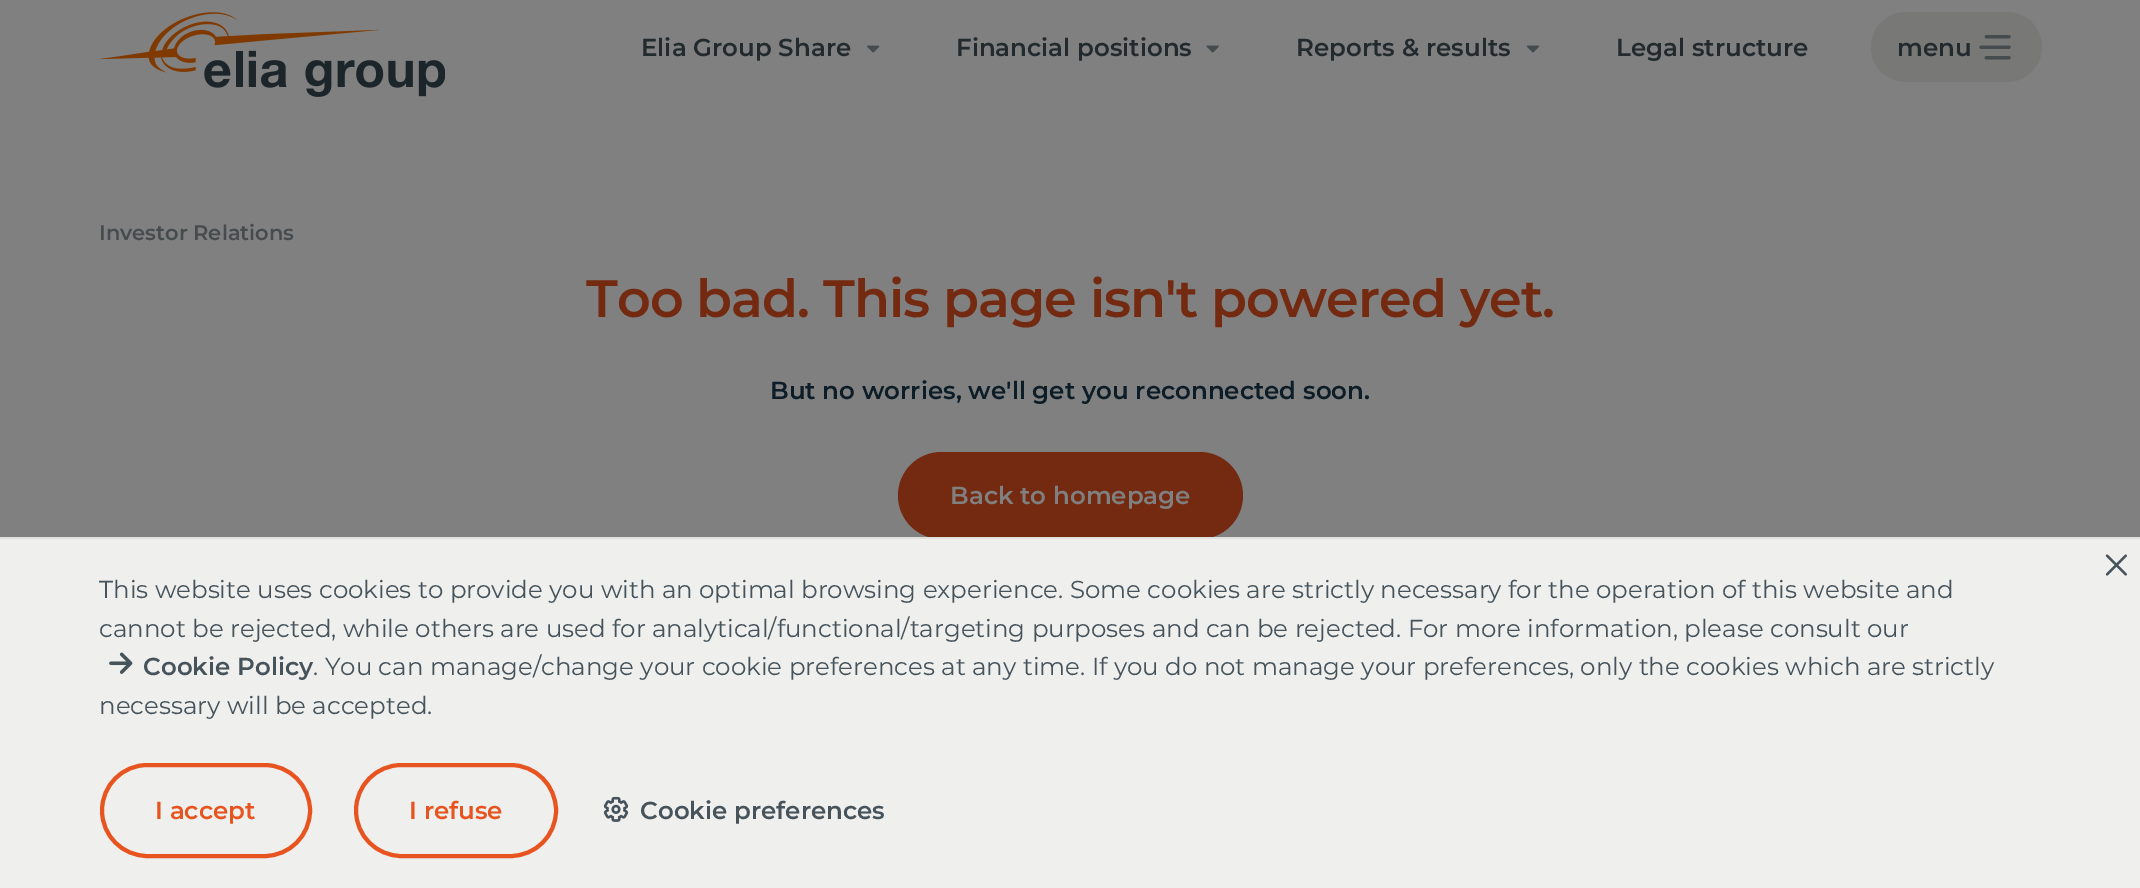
%!PS
<< /PageSize [2140 888] >> setpagedevice
/rgb { dup -16 bitshift 255 div exch dup -8 bitshift 255 and 255 div exch 255 and 255 div setrgbcolor } def
/font { [ exch dup neg 0 0 3 -1 roll 0 0 ] selectfont } def
/text { moveto show } def
/roundrect { 5 dict begin { /r /h /w /y /x } { exch def } forall
  x r add y moveto x w add y 2 copy h add r arct x w add y h add x 1 index r arct
  x y h add x y r arct x y 2 copy exch w add exch r arct closepath end } def
/picture { 5 dict begin { /h /w /y /x /name } { exch def } forall
  gsave x y translate w h scale
  w h 8 [w 0 0 h 0 0] name (r) file false 3 colorimage grestore end } def
0 888 translate 1 -1 scale
4 setmiterlimit
/s1 { /Montserrat-SemiBold 24.5 font 16#232A2E rgb } def
/s2 { /Montserrat-SemiBold 21 font 16#464B4E rgb } def
/s3 { /Montserrat-SemiBold 24.5 font 16#0C1D27 rgb } def
/s4 { /Montserrat-SemiBold 24.5 font 16#808080 rgb } def
/s5 { /Montserrat-Regular 24.5 font 16#46535B rgb } def
/s6 { /Montserrat-SemiBold 24.5 font 16#46535B rgb } def
/s7 { /Montserrat-SemiBold 24.5 font 16#E75420 rgb } def
16#808080 rgb
0 0 2140 888 rectfill
(pic1.raw) 100 12 345 85 picture
s1
(Elia Group Share) 641 56 text
(pic2.raw) 867 45 13 8 picture
(Financial positions) 956 56 text
(pic3.raw) 1206 45 13 8 picture
(Reports & results) 1296 56 text
(pic4.raw) 1526 45 14 8 picture
(Legal structure) 1616 56 text
16#787877 rgb
1871 12 171 70 35 roundrect fill
s1
(menu) 1897 56 text
(pic5.raw) 1979 35 32 25 picture
s2
(Investor Relations) 99 240 text
/Montserrat-SemiBold 52.5 font
16#742A10 rgb
586 317 moveto -0.9 0 (Too bad. This page isn't powered yet.) ashow
s3
(But no worries, we'll get you reconnected soon.) 770 399 text
16#742A10 rgb
898 452 345 87 43.5 roundrect fill
s4
(Back to homepage) 950 504 text
16#EFF0EE rgb
0 539 2140 349 rectfill
16#E0E1DD rgb
0 537 2140 2 rectfill
(pic6.raw) 2105 554 22 22 picture
s5
(This website uses cookies to provide you with an optimal browsing experience. Some cookies are strictly necessary for the operation of this website and) 99 598 text
(cannot be rejected, while others are used for analytical/functional/targeting purposes and can be rejected. For more information, please consult our) 99 637 text
(pic7.raw) 109 652 24 22 picture
s6
(Cookie Policy) 143 675 text
s5
(. You can manage/change your cookie preferences at any time. If you do not manage your preferences, only the cookies which are strictly) 313 675 text
(necessary will be accepted.) 99 714 text
16#E75420 rgb
4 setlinewidth
102 765 208 91 45.5 roundrect stroke
s7
(I accept) 155 819 text
356 765 200 91 45.5 roundrect stroke
(I refuse) 409 819 text
(pic8.raw) 603 796 26 26 picture
s6
(Cookie preferences) 640 819 text
showpage
